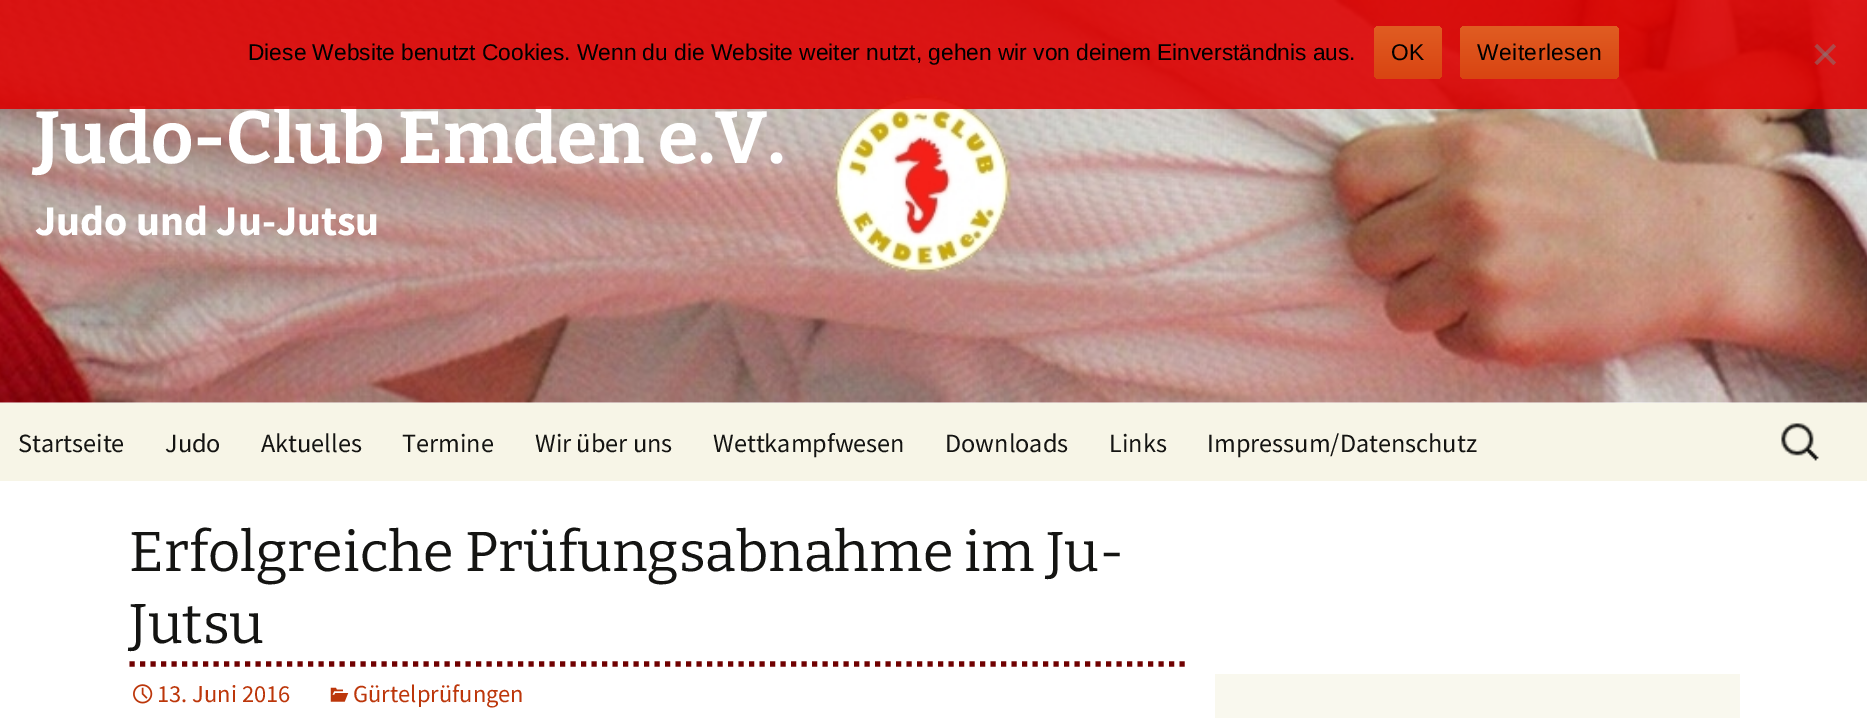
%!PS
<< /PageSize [1867 718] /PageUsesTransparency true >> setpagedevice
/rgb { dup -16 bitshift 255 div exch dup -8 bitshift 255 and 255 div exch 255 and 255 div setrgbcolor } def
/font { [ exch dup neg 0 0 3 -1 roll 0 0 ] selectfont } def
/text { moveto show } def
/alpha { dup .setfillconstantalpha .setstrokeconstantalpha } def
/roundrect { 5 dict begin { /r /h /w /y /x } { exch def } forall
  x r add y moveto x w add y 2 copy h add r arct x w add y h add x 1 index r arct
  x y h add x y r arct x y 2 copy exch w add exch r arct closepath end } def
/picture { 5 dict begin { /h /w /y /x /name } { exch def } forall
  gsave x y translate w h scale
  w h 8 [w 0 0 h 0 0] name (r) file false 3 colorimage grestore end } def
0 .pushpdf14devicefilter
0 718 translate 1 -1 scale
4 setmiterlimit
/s1 { /Bitter-Thin 73.5 font 16#FFFFFF rgb } def
/s2 { /LiberationSans-Regular 22.75 font 16#000000 rgb } def
/s3 { /SourceSansPro-Bold 42 font 16#FFFFFF rgb } def
/s4 { /SourceSansPro-Regular 26.25 font 16#141412 rgb } def
/s5 { /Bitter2-Thin 56 font 16#141412 rgb } def
/s6 { /SourceSansPro-Regular 24.5 font 16#BC360A rgb } def
16#FFFFFF rgb
0 0 1867 718 rectfill
(pic1.raw) 0 0 1867 403 picture
s1
(Judo-Club Emden e.V.) 35 163 text
0.89 alpha
16#DD0000 rgb
0 0 1867 109 rectfill
1 alpha
s2
(Diese Website benutzt Cookies. Wenn du die Website weiter nutzt, gehen wir von deinem Einverständnis aus.) 248 60 text
gsave 1374 26 68 53 5 roundrect clip newpath
<< /ShadingType 2 /ColorSpace /DeviceRGB /Coords [1408 26 1408 79] /Extend [true true] /Function << /FunctionType 2 /Domain [0 1] /C0 [0.878 0.365 0.133] /C1 [0.851 0.267 0.071] /N 1 >> >> shfill grestore
1391 60 moveto 0.5 0 (OK) ashow
gsave 1460 26 159 53 5 roundrect clip newpath
<< /ShadingType 2 /ColorSpace /DeviceRGB /Coords [1539 26 1539 79] /Extend [true true] /Function << /FunctionType 2 /Domain [0 1] /C0 [0.878 0.365 0.133] /C1 [0.851 0.267 0.071] /N 1 >> >> shfill grestore
1477 60 moveto 0.5 0 (Weiterlesen) ashow
0.5 alpha
16#808080 rgb
1833.5 44 moveto 1836 46.5 lineto 1817 65 lineto 1814.5 62.5 lineto closepath fill
1814.5 46.5 moveto 1817 44 lineto 1836 62.5 lineto 1833.5 65 lineto closepath fill
1 alpha
s3
(Judo und Ju-Jutsu) 35 235 text
16#F7F5E7 rgb
0 403 1867 78 rectfill
s4
(Startseite) 18 452 text
(Judo) 165 452 text
(Aktuelles) 261 452 text
(Termine) 402 452 text
(Wir über uns) 535 452 text
(Wettkampfwesen) 713 452 text
(Downloads) 945 452 text
(Links) 1109 452 text
(Impressum/Datenschutz) 1207 452 text
(pic2.raw) 1781 423 38 38 picture
16#6F0000 rgb
5.2 setlinewidth
[5.25 5.25] 0 setdash
129.5 664 moveto 1186.5 664 lineto stroke
s5
(Erfolgreiche Prüfungsabnahme im Ju-) 129 571 text
(Jutsu) 129 643 text
(pic3.raw) 133 684 20 20 picture
s6
(13. Juni 2016) 157 702 text
(pic4.raw) 330 687 19 15 picture
(Gürtelprüfungen) 353 702 text
16#F9F8EE rgb
1215 674 525 44 rectfill
.poppdf14devicefilter showpage
